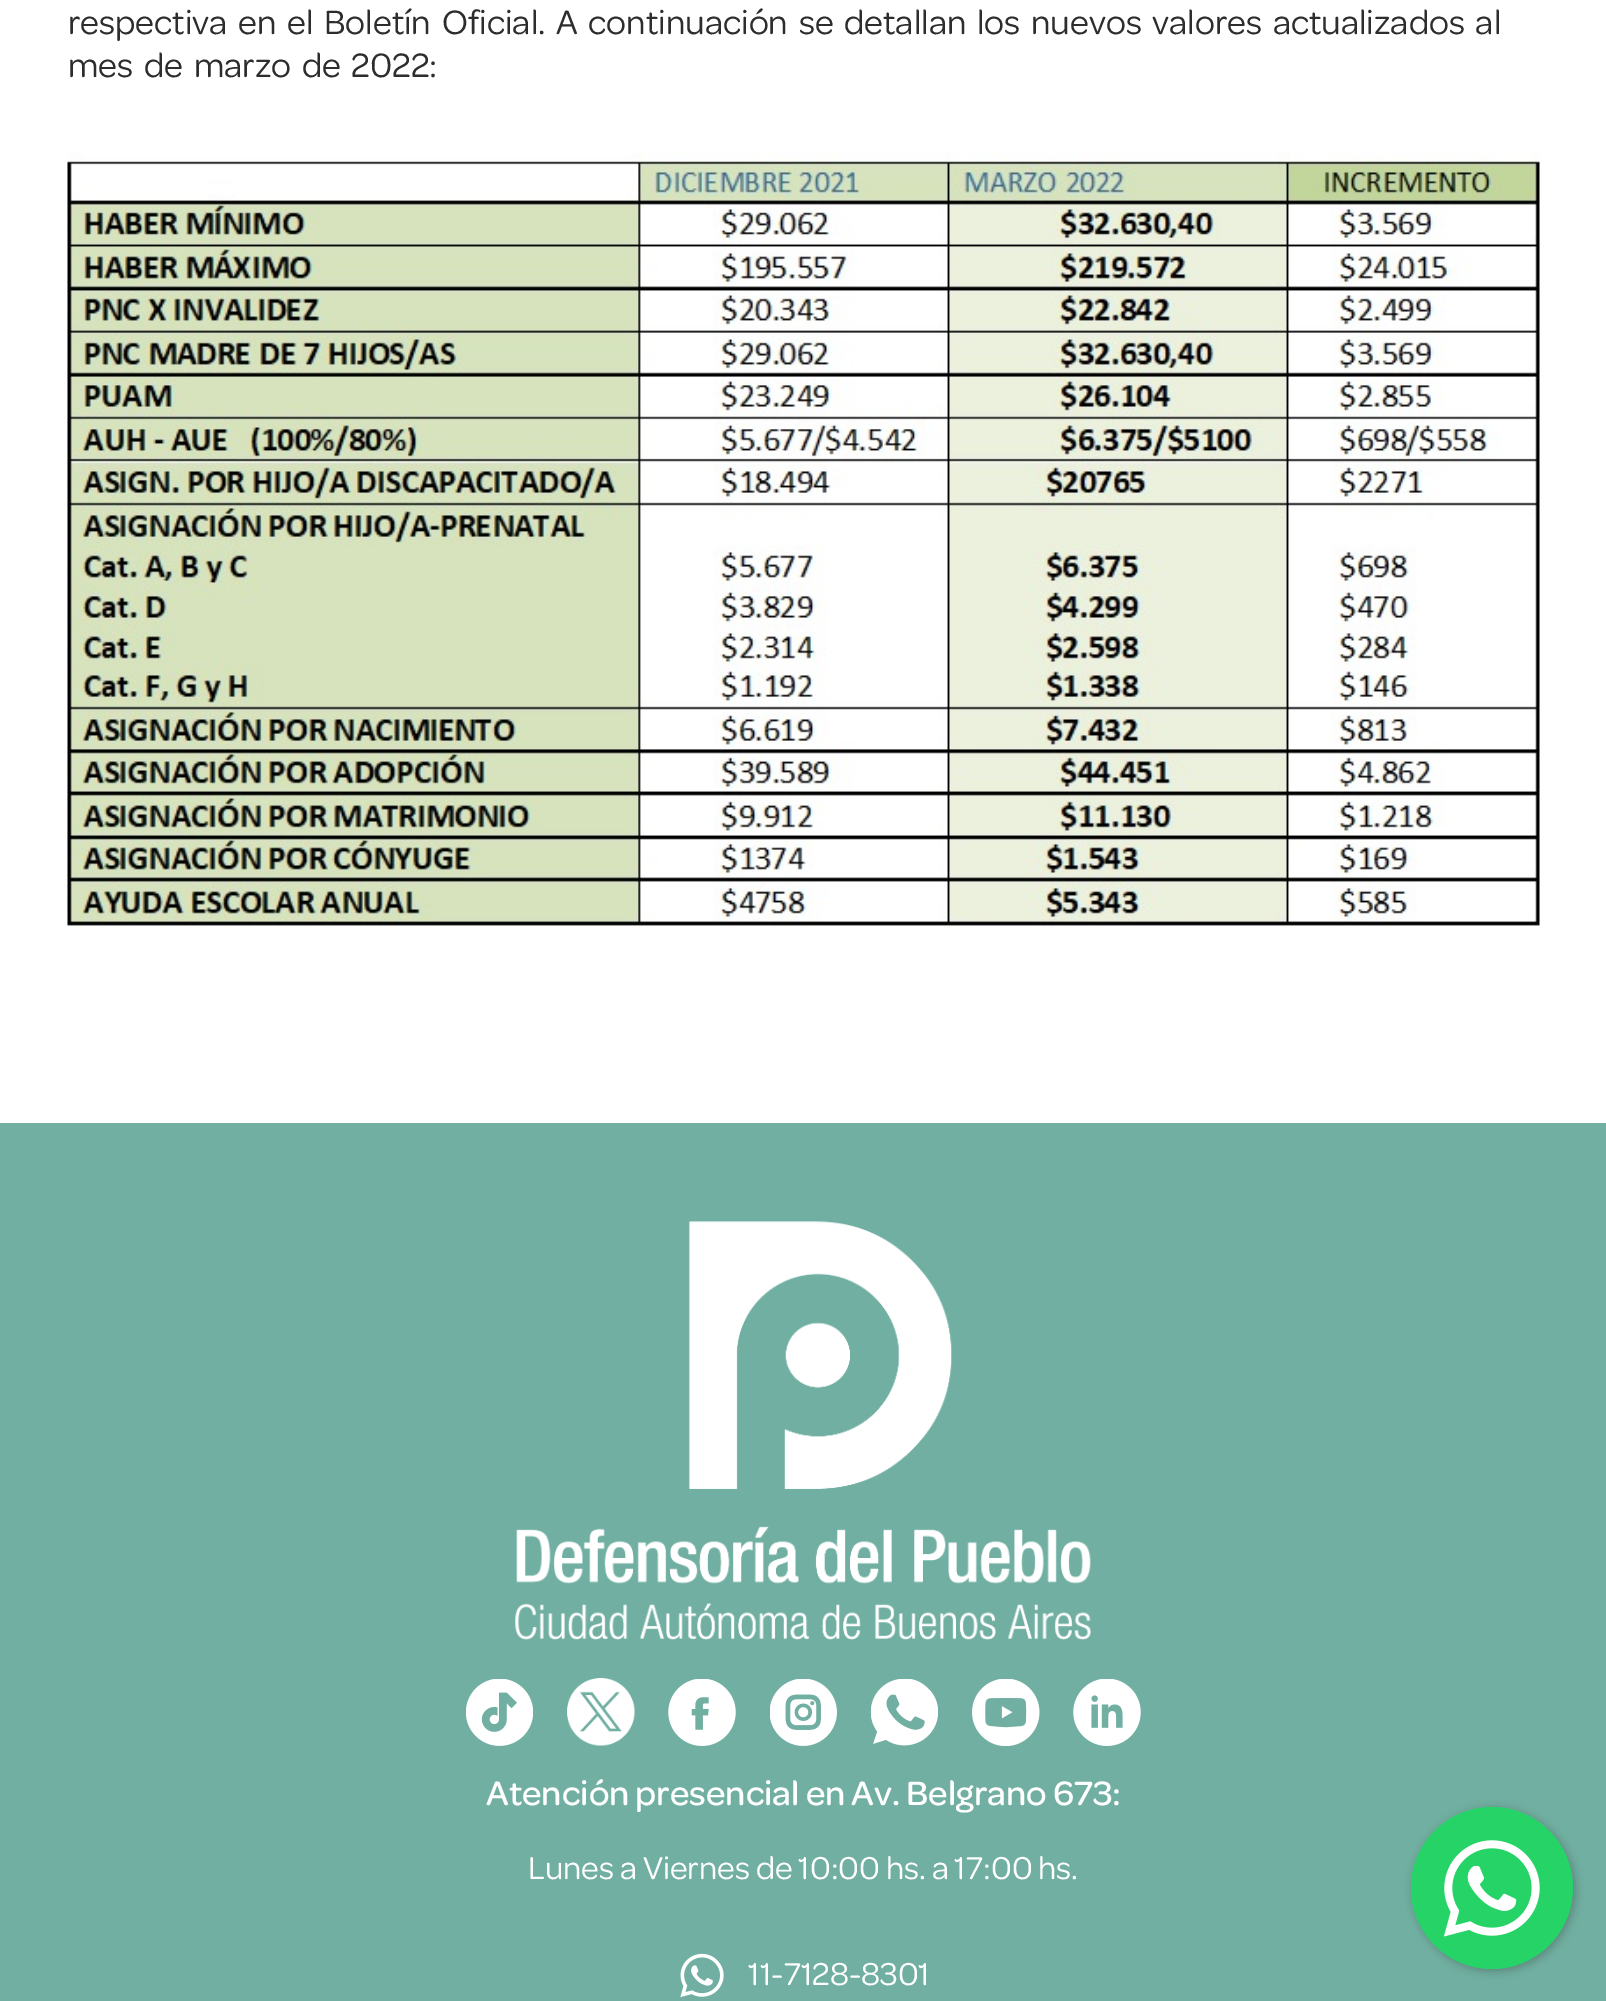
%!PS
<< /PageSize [1606 2001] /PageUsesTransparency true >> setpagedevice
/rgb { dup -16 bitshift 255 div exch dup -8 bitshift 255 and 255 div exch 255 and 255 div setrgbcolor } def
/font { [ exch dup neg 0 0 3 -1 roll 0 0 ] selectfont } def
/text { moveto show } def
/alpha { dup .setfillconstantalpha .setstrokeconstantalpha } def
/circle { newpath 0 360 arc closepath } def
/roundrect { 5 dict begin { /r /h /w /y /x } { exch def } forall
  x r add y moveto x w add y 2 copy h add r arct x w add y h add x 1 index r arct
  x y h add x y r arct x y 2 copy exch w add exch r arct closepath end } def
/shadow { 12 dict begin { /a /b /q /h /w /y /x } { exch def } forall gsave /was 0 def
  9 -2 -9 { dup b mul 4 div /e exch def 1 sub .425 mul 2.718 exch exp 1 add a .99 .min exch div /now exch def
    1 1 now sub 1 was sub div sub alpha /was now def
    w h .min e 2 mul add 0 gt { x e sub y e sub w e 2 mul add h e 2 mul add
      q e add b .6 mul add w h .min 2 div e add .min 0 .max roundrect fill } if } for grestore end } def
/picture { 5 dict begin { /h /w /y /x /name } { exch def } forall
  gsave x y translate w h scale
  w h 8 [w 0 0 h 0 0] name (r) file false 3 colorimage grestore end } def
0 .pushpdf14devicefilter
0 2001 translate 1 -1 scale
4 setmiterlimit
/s1 { /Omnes-Medium 36 font 16#FFFFFF rgb } def
/s2 { /Omnes-Regular 33.75 font 16#FFFFFF rgb } def
16#FFFFFF rgb
0 0 1606 2001 rectfill
/Omnes-Regular 36 font
16#2D2D2D rgb
68 34 moveto 4.5 0 32 (respectiva en el Boletín Oficial. A continuación se detallan los nuevos valores actualizados al) widthshow
68 77 moveto 4.5 0 32 (mes de marzo de 2022:) widthshow
(pic1.raw) 67 151 1474 777 picture
16#70AFA1 rgb
0 1123 1606 878 rectfill
(pic2.raw) 515 1221 577 419 picture
(pic3.raw) 466 1679 67 67 picture
(pic4.raw) 567 1678 68 68 picture
(pic5.raw) 668 1679 68 67 picture
(pic6.raw) 770 1679 67 67 picture
(pic7.raw) 871 1679 67 67 picture
(pic8.raw) 972 1679 68 67 picture
(pic9.raw) 1073 1679 68 67 picture
s1
(Atención presencial en Av. Belgrano 673:) 486 1805 text
s2
(Lunes a Viernes de 10:00 hs. a 17:00 hs.) 528 1879 text
(pic10.raw) 680 1953 44 45 picture
(11-7128-8301) 748 1985 text
16#3C3C3C rgb
1413 1809 162 162 81 4.5 0.4 shadow
16#25D366 rgb
1492 1888 81 circle fill
(pic11.raw) 1411 1807 162 162 picture
.poppdf14devicefilter showpage
